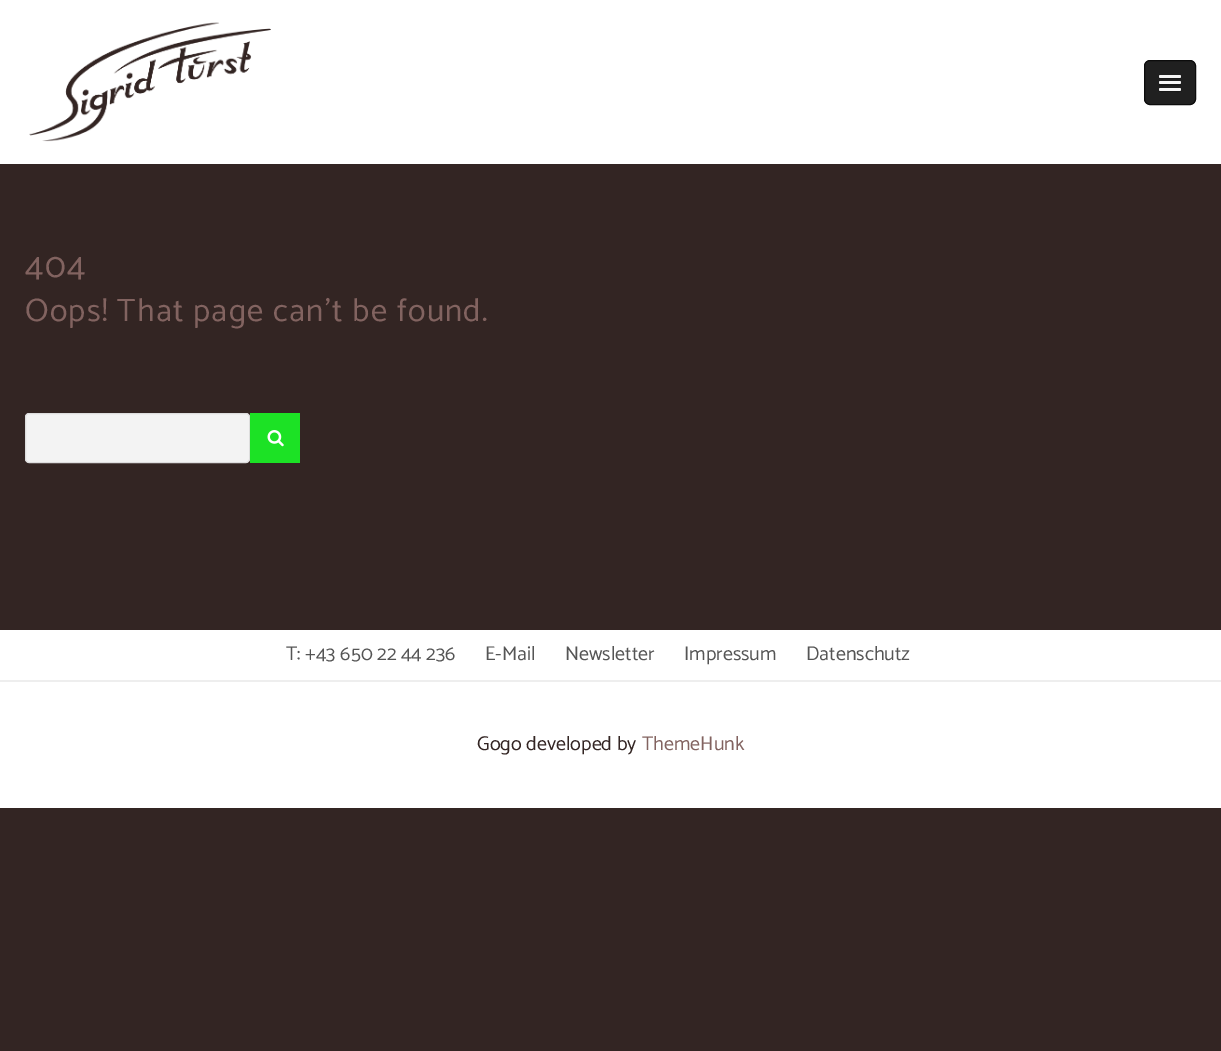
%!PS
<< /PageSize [1221 1051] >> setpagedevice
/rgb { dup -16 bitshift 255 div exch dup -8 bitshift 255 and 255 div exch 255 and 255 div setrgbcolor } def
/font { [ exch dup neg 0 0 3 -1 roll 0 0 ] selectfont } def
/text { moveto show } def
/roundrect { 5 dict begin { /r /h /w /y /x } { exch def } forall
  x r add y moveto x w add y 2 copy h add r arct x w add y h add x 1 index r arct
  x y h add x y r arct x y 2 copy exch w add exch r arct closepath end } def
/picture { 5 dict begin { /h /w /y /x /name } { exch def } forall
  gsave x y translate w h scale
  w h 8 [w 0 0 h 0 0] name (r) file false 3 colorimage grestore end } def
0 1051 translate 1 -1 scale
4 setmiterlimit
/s1 { /Catamaran-Regular 20 font 16#555555 rgb } def
/s2 { /Catamaran-Regular 20 font 16#332523 rgb } def
/s3 { /Catamaran-Regular 20 font 16#826360 rgb } def
16#332523 rgb
0 0 1221 1051 rectfill
16#FFFFFF rgb
0 0 1221 164 rectfill
(pic1.raw) 29 22 242 120 picture
16#202020 rgb
1144.5 60.5 51 44 5.5 roundrect gsave fill grestore
16#0C0C0C rgb
stroke
16#181818 rgb
1159 77 moveto 1158.5 79.5 1163 79 1163.5 79 curveto 1176.5 79 lineto 1177 79 1181.5 79.5 1181 77 curveto 1180 78 1160 78 1159 77 curveto closepath fill
16#F5F5F5 rgb
1159 75 22 3 1.5 roundrect fill
16#181818 rgb
1159.5 83.5 moveto 1159 85 lineto 1159.5 86.5 1162.5 86 1163.5 86 curveto 1176.5 86 lineto 1177.5 86 1180.5 86.5 1181 85 curveto 1180.5 83.5 lineto closepath fill
16#F5F5F5 rgb
1159 81 22 3 1.5 roundrect fill
16#181818 rgb
1159 89.5 moveto 1157.5 92.5 1163 92 1163.5 92 curveto 1176.5 92 lineto 1177 92 1182.5 92.5 1181 89.5 curveto 1180 90 1160 90 1159 89.5 curveto closepath fill
16#F5F5F5 rgb
1159 88 22 3 1.5 roundrect fill
/Catamaran-Regular 35 font
16#826360 rgb
25 277 moveto 1.25 0 (404) ashow
/Catamaran-Regular 32.5 font
25 321 moveto 1.25 0 (Oops! That page can’t be found.) ashow
16#F3F3F3 rgb
25.5 413.5 224 49 3.5 roundrect gsave fill grestore
16#DDDDDD rgb
stroke
16#1CE225 rgb
250 413 50 50 rectfill
(pic2.raw) 267 430 17 17 picture
16#FFFFFF rgb
0 630 1221 50 rectfill
16#EEEEEE rgb
0 680 1221 2 rectfill
s1
(T: +43 650 22 44 236) 286 660 text
(E-Mail) 485 660 text
(Newsletter) 565 660 text
(Impressum) 684 660 text
(Datenschutz) 806 660 text
16#FFFFFF rgb
0 682 1221 126 rectfill
s2
(Gogo developed by) 477 750 text
s3
(ThemeHunk) 642 750 text
showpage
